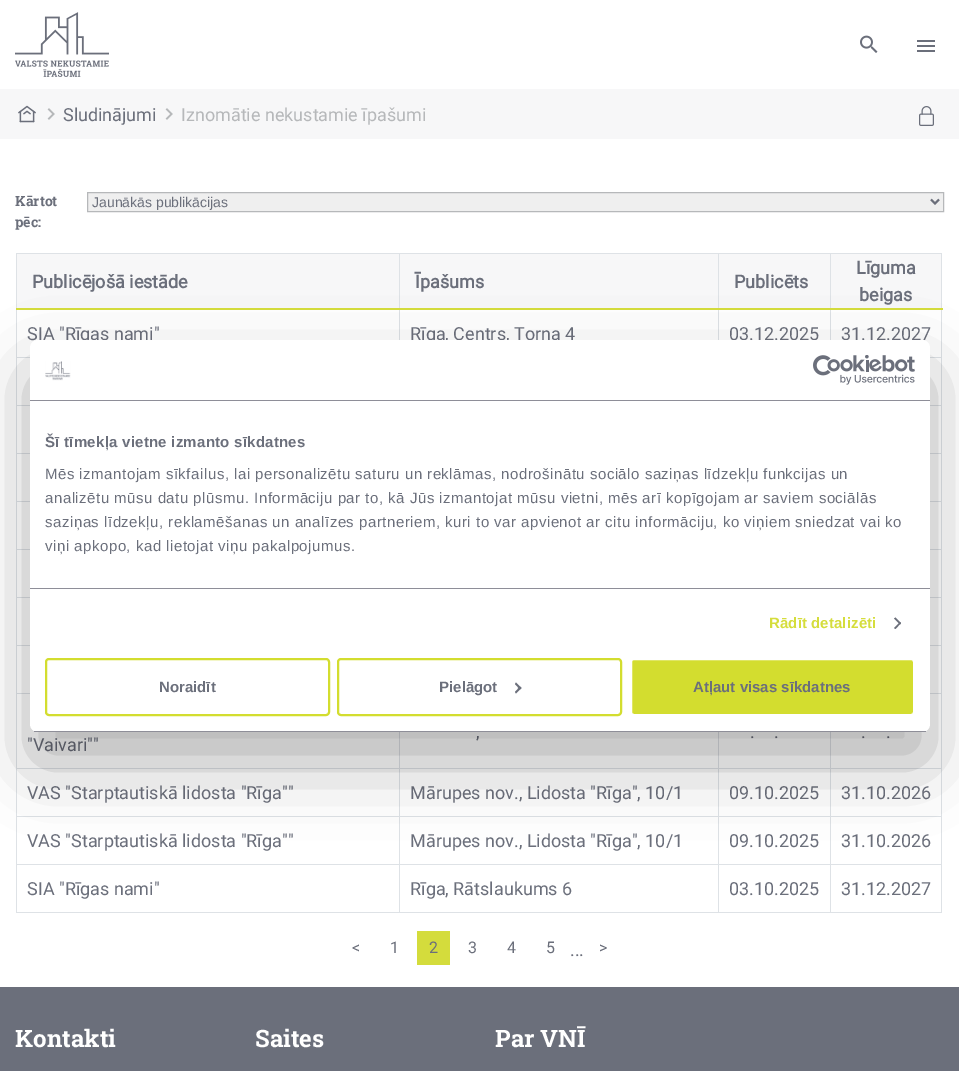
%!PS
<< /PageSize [959 1071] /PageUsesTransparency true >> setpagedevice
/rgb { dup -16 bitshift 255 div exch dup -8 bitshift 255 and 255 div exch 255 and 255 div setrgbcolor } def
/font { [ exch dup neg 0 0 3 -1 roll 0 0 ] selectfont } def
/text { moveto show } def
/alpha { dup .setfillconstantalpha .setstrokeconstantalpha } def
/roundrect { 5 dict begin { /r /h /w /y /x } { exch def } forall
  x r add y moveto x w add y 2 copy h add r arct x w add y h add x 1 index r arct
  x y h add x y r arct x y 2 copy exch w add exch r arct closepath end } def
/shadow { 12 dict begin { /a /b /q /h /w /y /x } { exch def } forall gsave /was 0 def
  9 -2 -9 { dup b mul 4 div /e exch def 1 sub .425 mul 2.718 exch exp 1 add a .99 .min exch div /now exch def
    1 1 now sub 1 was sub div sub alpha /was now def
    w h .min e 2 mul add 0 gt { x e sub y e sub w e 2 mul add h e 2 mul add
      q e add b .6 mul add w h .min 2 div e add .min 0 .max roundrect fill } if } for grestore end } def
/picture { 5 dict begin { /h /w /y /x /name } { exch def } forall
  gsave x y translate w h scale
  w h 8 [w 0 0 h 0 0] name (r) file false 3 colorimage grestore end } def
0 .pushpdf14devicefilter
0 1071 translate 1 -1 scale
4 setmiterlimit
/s1 { /Roboto-Regular 18 font 16#6B6F7B rgb } def
/s2 { /Roboto-Regular 18 font 16#B6B8BA rgb } def
/s3 { /RobotoSlab-Bold 14 font 16#6B6F7B rgb } def
/s4 { /LiberationSans-Regular 14 font 16#6B6F7B rgb } def
/s5 { /Roboto-Bold 18 font 16#6B6F7B rgb } def
/s6 { /Roboto-Regular 16 font 16#6B6F7B rgb } def
/s7 { /RobotoSlab-Bold 24 font 16#FFFFFF rgb } def
/s8 { /LiberationSans-Bold 15 font 16#6B6F7B rgb } def
16#FFFFFF rgb
0 0 959 1071 rectfill
(pic1.raw) 15 12 94 65 picture
(pic2.raw) 860 35 18 18 picture
(pic3.raw) 917 40 18 12 picture
16#F7F7F8 rgb
0 89 959 50 rectfill
(pic4.raw) 18 105 18 18 picture
(pic5.raw) 47 108 8 12 picture
s1
(Sludinājumi) 63 121 text
(pic5.raw) 165 108 8 12 picture
s2
(Iznomātie nekustamie īpašumi) 181 121 text
(pic6.raw) 919 106 15 20 picture
s3
(Kārtot) 15 206 text
(pēc:) 15 227 text
16#EFEFEF rgb
87.5 192.5 moveto 943.5 192.5 lineto 943.5 211.5 lineto 87.5 211.5 lineto closepath gsave fill grestore
16#B6B8BA rgb
stroke
16#6B6F7B rgb
2 setlinewidth
931 199.5 moveto 935 203.5 lineto 939 199.5 lineto stroke
s4
(Jaunākās publikācijas) 92 207 text
16#DEE2E6 rgb
16 253 926 1 rectfill
941 253 1 660 rectfill
16 912 926 1 rectfill
16 253 1 660 rectfill
16#F7F7F8 rgb
17 254 924 54 rectfill
16#DEE2E6 rgb
399 253 1 87 rectfill
718 253 1 87 rectfill
830 253 1 87 rectfill
16#D5DD3C rgb
16 308 927 2 rectfill
s5
(Publicējošā iestāde) 32 288 text
(Īpašums) 415 288 text
(Publicēts) 734 288 text
(Līguma) 856 274 text
(beigas) 859 301 text
16#DEE2E6 rgb
16 357 926 1 rectfill
s1
(SIA "Rīgas nami") 27 340 text
(Rīga, Centrs, Torņa 4) 410 340 text
(03.12.2025) 729 340 text
(31.12.2027) 841 340 text
16#DEE2E6 rgb
16 405 926 1 rectfill
16 453 926 1 rectfill
16 501 926 1 rectfill
16 549 926 1 rectfill
16 597 926 1 rectfill
16 645 926 1 rectfill
16 693 926 1 rectfill
16 768 926 1 rectfill
s1
("Vaivari"") 27 751 text
(,) 476 738 text
(.) 750 738 text
(.) 774 738 text
(.) 861 738 text
(.) 886 738 text
16#DEE2E6 rgb
16 816 926 1 rectfill
s1
(VAS "Starptautiskā lidosta "Rīga"") 27 799 text
(Mārupes nov., Lidosta "Rīga", 10/1) 410 799 text
(09.10.2025) 729 799 text
(31.10.2026) 841 799 text
16#DEE2E6 rgb
16 864 926 1 rectfill
s1
(VAS "Starptautiskā lidosta "Rīga"") 27 847 text
(Mārupes nov., Lidosta "Rīga", 10/1) 410 847 text
(09.10.2025) 729 847 text
(31.10.2026) 841 847 text
(SIA "Rīgas nami") 27 895 text
16#DEE2E6 rgb
399 732 1 181 rectfill
s1
(Rīga, Rātslaukums 6) 410 895 text
16#DEE2E6 rgb
718 732 1 181 rectfill
s1
(03.10.2025) 729 895 text
16#DEE2E6 rgb
830 732 1 181 rectfill
s1
(31.12.2027) 841 895 text
s6
(<) 352 953 text
(1) 390 953 text
16#D4DC3C rgb
417 931 33 34 rectfill
s6
(2) 429 953 text
(3) 468 953 text
(4) 507 953 text
(5) 546 953 text
(>) 599 953 text
s1
(...) 570 956 text
0 987 959 84 rectfill
s7
(Kontakti) 15 1047 text
(Saites) 255 1047 text
(Par VNĪ) 495 1047 text
16#000000 rgb
30 372 900 392 8 34 0.3 shadow
16#FFFFFF rgb
30 340 900 392 8 roundrect fill
16#8E8E98 rgb
30 400 900 1 rectfill
(pic7.raw) 45 361 26 20 picture
(pic8.raw) 813 355 102 30 picture
30 588 900 1 rectfill
/LiberationSans-Bold 15 font
16#6B6F7B rgb
45 447 moveto 0.25 0 (Šī tīmekļa vietne izmanto sīkdatnes) ashow
/LiberationSans-Regular 15 font
45 479 moveto 0.5 0 (Mēs izmantojam sīkfailus, lai personalizētu saturu un reklāmas, nodrošinātu sociālo saziņas līdzekļu funkcijas un) ashow
45 503 moveto 0.5 0 (analizētu mūsu datu plūsmu. Informāciju par to, kā Jūs izmantojat mūsu vietni, mēs arī kopīgojam ar saviem sociālās) ashow
45 527 moveto 0.5 0 (saziņas līdzekļu, reklamēšanas un analīzes partneriem, kuri to var apvienot ar citu informāciju, ko viņiem sniedzat vai ko) ashow
45 551 moveto 0.5 0 (viņi apkopo, kad lietojat viņu pakalpojumus.) ashow
/LiberationSans-Bold 15 font
16#D5DD3C rgb
769 628 moveto 0.1 0 (Rādīt detalizēti) ashow
16#6B6F7B rgb
895.5 617.5 moveto 901 623 lineto 900 624.5 lineto 894 618.5 lineto closepath fill
900 622 moveto 901 623 lineto 895.5 629 lineto 894 628 lineto closepath fill
gsave
30 340 900 392 8 roundrect clip newpath
16#8E8E98 rgb
30 731 900 1 rectfill
grestore
16#D3DD2F rgb
46 659 283 56 3 roundrect stroke
s8
(Noraidīt) 159 692 text
16#D3DD2F rgb
338 659 283 56 3 roundrect stroke
s8
(Pielāgot) 439 692 text
516 682.5 moveto 521.5 688 lineto 520 689.5 lineto 515 684 lineto closepath fill
520 686.5 moveto 521.5 688 lineto 516 693.5 lineto 515 692 lineto closepath fill
16#D3DD2F rgb
631 659 283 56 3 roundrect gsave fill grestore
16#FFFFFF rgb
stroke
s8
(Atļaut visas sīkdatnes) 693 692 text
.poppdf14devicefilter showpage
